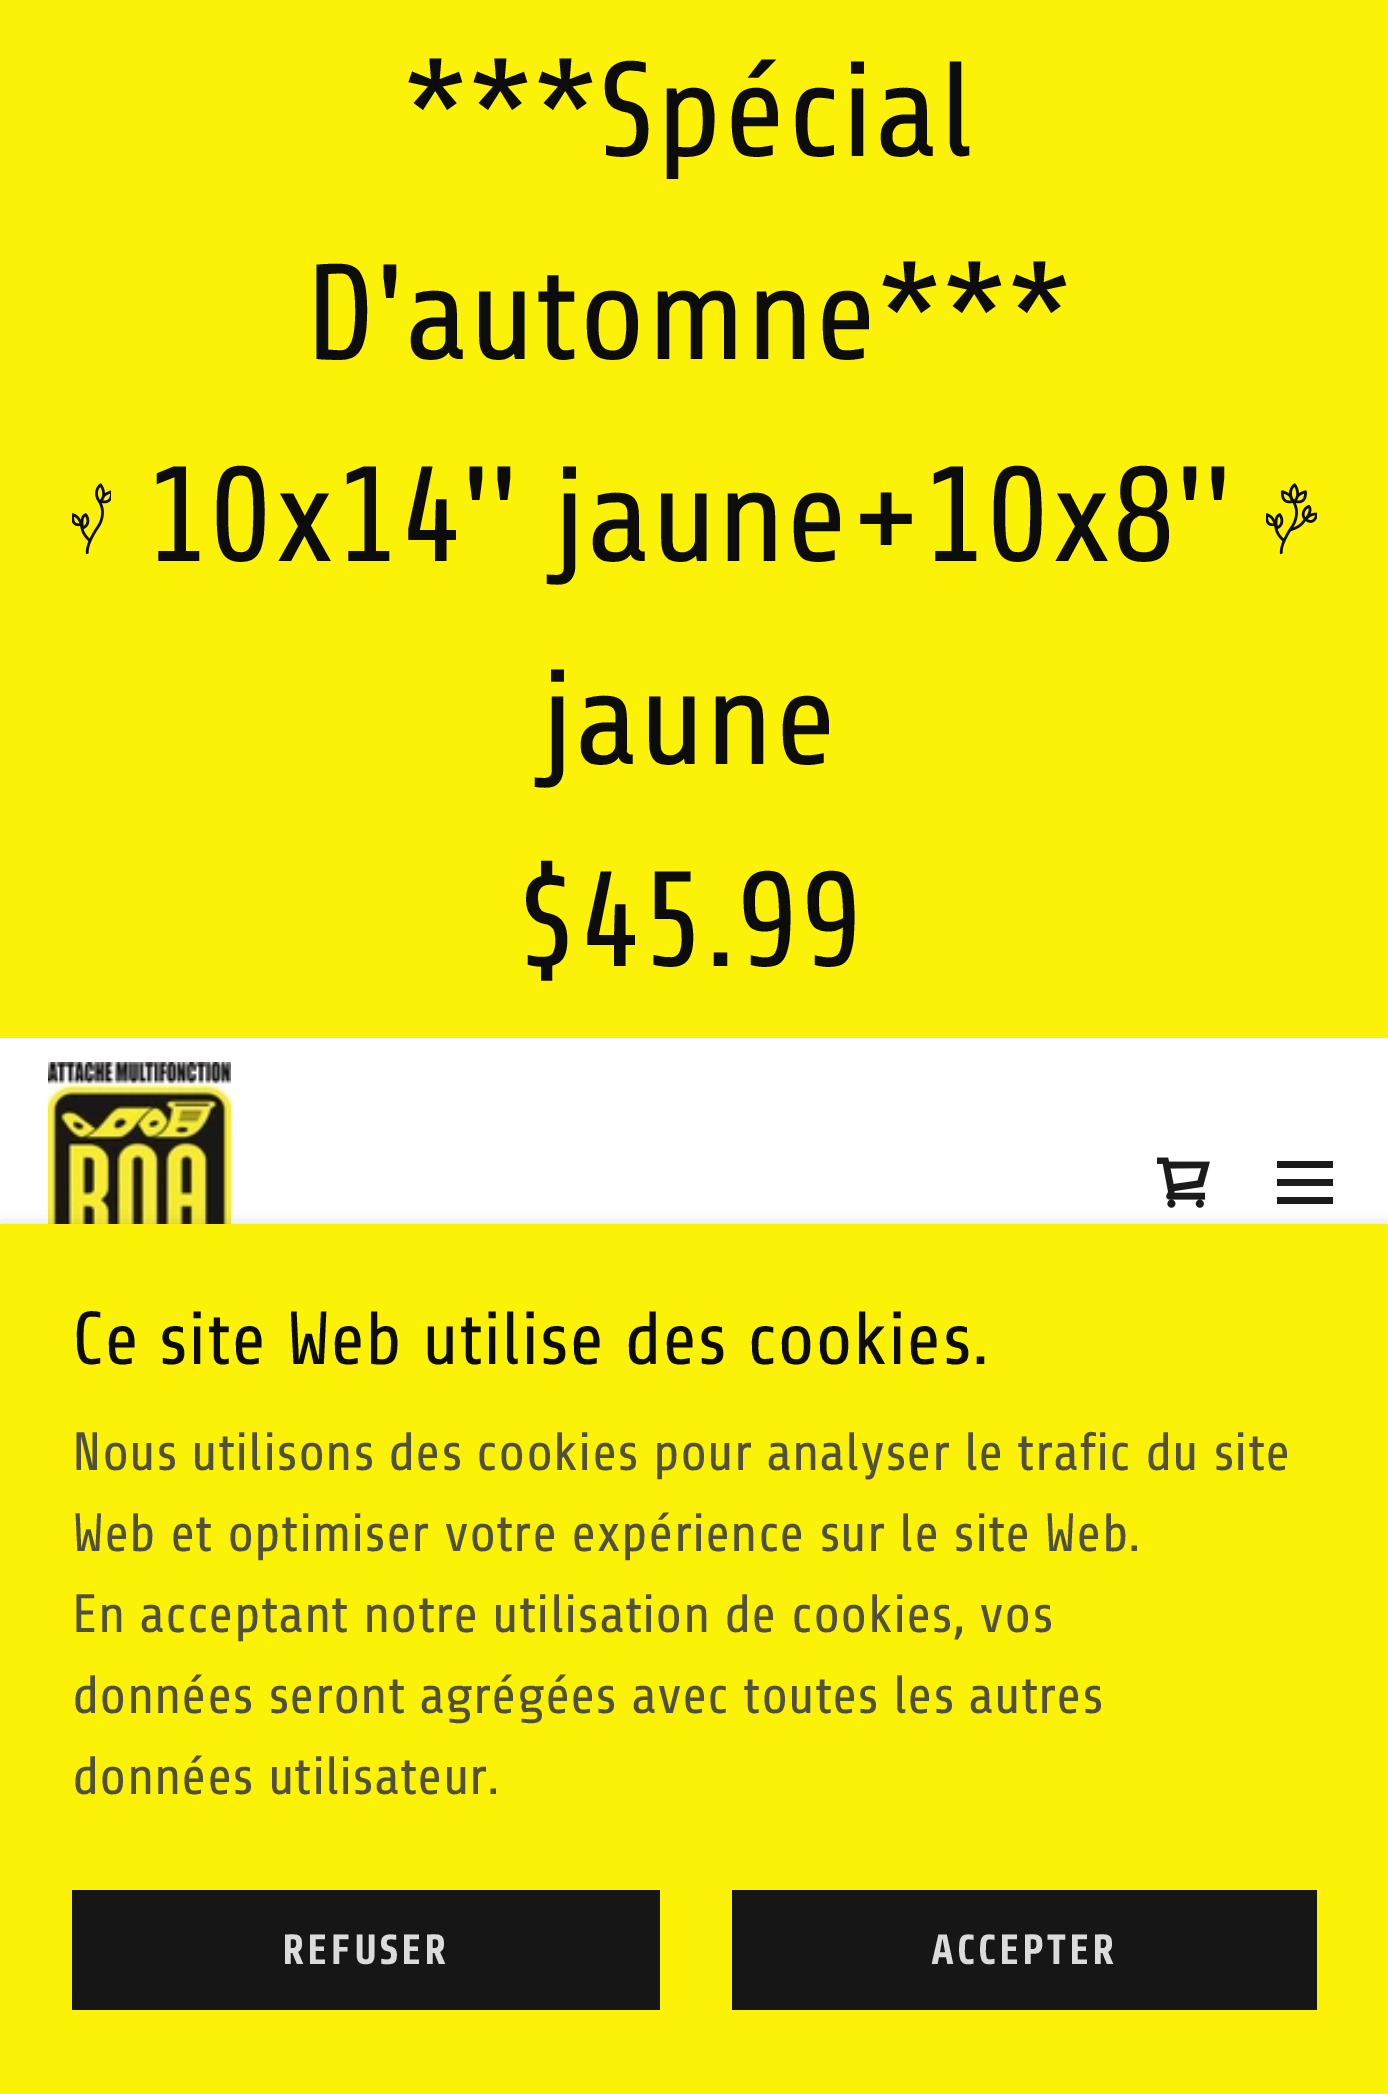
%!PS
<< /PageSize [1388 2094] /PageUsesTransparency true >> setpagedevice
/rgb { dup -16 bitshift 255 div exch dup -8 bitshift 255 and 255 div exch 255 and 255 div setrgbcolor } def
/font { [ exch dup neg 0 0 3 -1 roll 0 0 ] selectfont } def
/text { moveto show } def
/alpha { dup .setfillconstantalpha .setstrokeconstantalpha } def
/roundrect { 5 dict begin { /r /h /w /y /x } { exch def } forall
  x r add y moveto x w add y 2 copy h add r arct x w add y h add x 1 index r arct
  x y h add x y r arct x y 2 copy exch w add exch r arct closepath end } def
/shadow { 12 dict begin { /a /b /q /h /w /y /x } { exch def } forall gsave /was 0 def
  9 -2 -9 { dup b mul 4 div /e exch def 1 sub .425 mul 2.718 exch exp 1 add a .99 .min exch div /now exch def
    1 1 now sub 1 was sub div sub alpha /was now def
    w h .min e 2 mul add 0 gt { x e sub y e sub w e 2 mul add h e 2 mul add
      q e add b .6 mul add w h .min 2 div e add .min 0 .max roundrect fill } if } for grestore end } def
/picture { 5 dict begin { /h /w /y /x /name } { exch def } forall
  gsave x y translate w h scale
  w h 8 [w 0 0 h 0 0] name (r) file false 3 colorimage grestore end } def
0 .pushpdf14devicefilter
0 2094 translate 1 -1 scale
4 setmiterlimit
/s1 { /Share-Regular 135 font 16#0D0C0C rgb } def
/s2 { /Share-Regular 75 font 16#0D0C0C rgb } def
/s3 { /Share-Regular 54 font 16#51503D rgb } def
16#FFFFFF rgb
0 0 1388 2094 rectfill
16#FBF207 rgb
0 0 1388 1038 rectfill
(pic1.raw) 72 483 39 72 picture
s1
(***Spécial) 403 156 text
(D'automne***) 305 359 text
(10x14'' jaune+10x8'') 146 561 text
(jaune) 541 764 text
($45.99) 515 966 text
(pic2.raw) 1266 483 51 72 picture
(pic3.raw) 48 1062 183 162 picture
(pic4.raw) 1157 1157 53 51 picture
16#1B1B1B rgb
1277 1161 56 7 rectfill
1277 1179 56 7 rectfill
1277 1197 56 7 rectfill
16#000000 rgb
0 1230 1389 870 0 9 0.3 shadow
16#FBF207 rgb
0 1224 1388 870 rectfill
s2
(Ce site Web utilise des cookies.) 72 1364 text
s3
(Nous utilisons des cookies pour analyser le trafic du site) 72 1470 text
(Web et optimiser votre expérience sur le site Web.) 72 1551 text
(En acceptant notre utilisation de cookies, vos) 72 1632 text
(données seront agrégées avec toutes les autres) 72 1713 text
(données utilisateur.) 72 1794 text
16#161616 rgb
72 1890 588 120 rectfill
/Share-Bold 42 font
16#DBDBDB rgb
282 1964 moveto 3 0 (REFUSER) ashow
16#161616 rgb
732 1890 585 120 rectfill
16#DBDBDB rgb
931 1964 moveto 3 0 (ACCEPTER) ashow
.poppdf14devicefilter showpage
